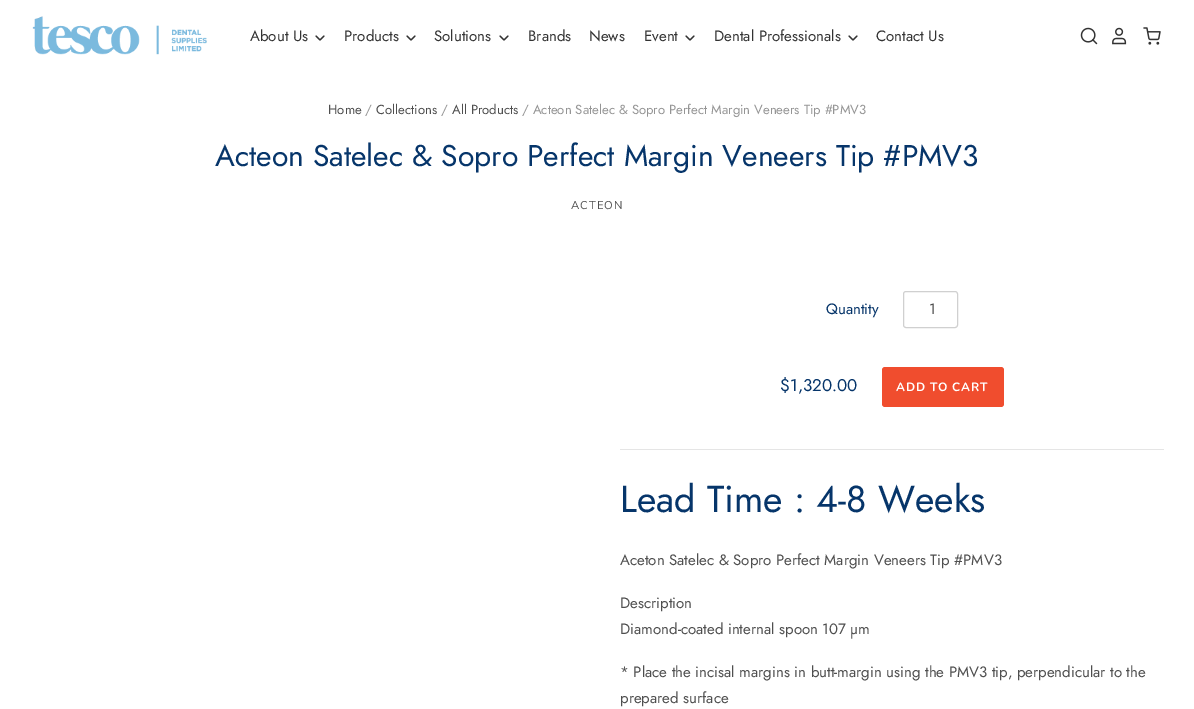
%!PS
<< /PageSize [1194 709] >> setpagedevice
/rgb { dup -16 bitshift 255 div exch dup -8 bitshift 255 and 255 div exch 255 and 255 div setrgbcolor } def
/font { [ exch dup neg 0 0 3 -1 roll 0 0 ] selectfont } def
/text { moveto show } def
/roundrect { 5 dict begin { /r /h /w /y /x } { exch def } forall
  x r add y moveto x w add y 2 copy h add r arct x w add y h add x 1 index r arct
  x y h add x y r arct x y 2 copy exch w add exch r arct closepath end } def
/picture { 5 dict begin { /h /w /y /x /name } { exch def } forall
  gsave x y translate w h scale
  w h 8 [w 0 0 h 0 0] name (r) file false 3 colorimage grestore end } def
0 709 translate 1 -1 scale
4 setmiterlimit
/s1 { /Jost-Regular 15 font 16#333333 rgb } def
/s2 { /Jost-Regular 13.1 font 16#4F4F4F rgb } def
/s3 { /Jost-Regular 13.1 font 16#959595 rgb } def
/s4 { /Jost-Regular 30 font 16#06356A rgb } def
/s5 { /Jost-Regular 15 font 16#06356A rgb } def
/s6 { /Jost-Regular 15 font 16#4F4F4F rgb } def
/s7 { /Jost-Regular 17 font 16#06356A rgb } def
/s8 { /Jost-Regular 37.5 font 16#06356A rgb } def
16#FFFFFF rgb
0 0 1194 709 rectfill
(pic1.raw) 32 16 175 39 picture
s1
(About Us) 250 41 text
1.2 setlinewidth
1 setlinecap
1 setlinejoin
316 36 moveto 320 40 lineto 324 36 lineto stroke
(Products) 344 41 text
407 36 moveto 411 40 lineto 415 36 lineto stroke
(Solutions) 434 41 text
500 36 moveto 504 40 lineto 508 36 lineto stroke
(Brands) 528 41 text
(News) 589 41 text
(Event) 644 41 text
686 36 moveto 690 40 lineto 694 36 lineto stroke
(Dental Professionals) 714 41 text
849 36 moveto 853 40 lineto 857 36 lineto stroke
(Contact Us) 876 41 text
(pic2.raw) 1080 27 18 18 picture
(pic3.raw) 1112 27 15 18 picture
(pic4.raw) 1143 27 18 18 picture
s2
(Home) 328 114 text
s3
(/) 365 114 text
s2
(Collections) 376 114 text
s3
(/) 441 114 text
s2
(All Products) 452 114 text
s3
(/ Acteon Satelec & Sopro Perfect Margin Veneers Tip #PMV3) 522 114 text
s4
(Acteon Satelec & Sopro Perfect Margin Veneers Tip #PMV3) 215 166 text
/Muli-Regular 11.25 font
16#4F4F4F rgb
571 209 moveto 1 0 (ACTEON) ashow
s5
(Quantity) 826 314 text
16#D0D0D0 rgb
1 setlinewidth
0 setlinecap
0 setlinejoin
903.5 291.5 54 36 2.5 roundrect stroke
s6
(1) 929 314 text
s7
($1,320.00) 780 391 text
16#F04D2E rgb
882 367 122 40 3 roundrect fill
/Nunito-Bold 12 font
16#FFFFFF rgb
896 391 moveto 0.8 0 (ADD TO CART) ashow
16#E5E5E5 rgb
620 449 544 1 rectfill
s8
(Lead Time : 4-8 Weeks) 620 512 text
s6
(Aceton Satelec & Sopro Perfect Margin Veneers Tip #PMV3) 620 565 text
(Description) 620 608 text
(Diamond-coated internal spoon 107 µm) 620 634 text
(* Place the incisal margins in butt-margin using the PMV3 tip, perpendicular to the) 620 677 text
(prepared surface) 620 703 text
showpage
